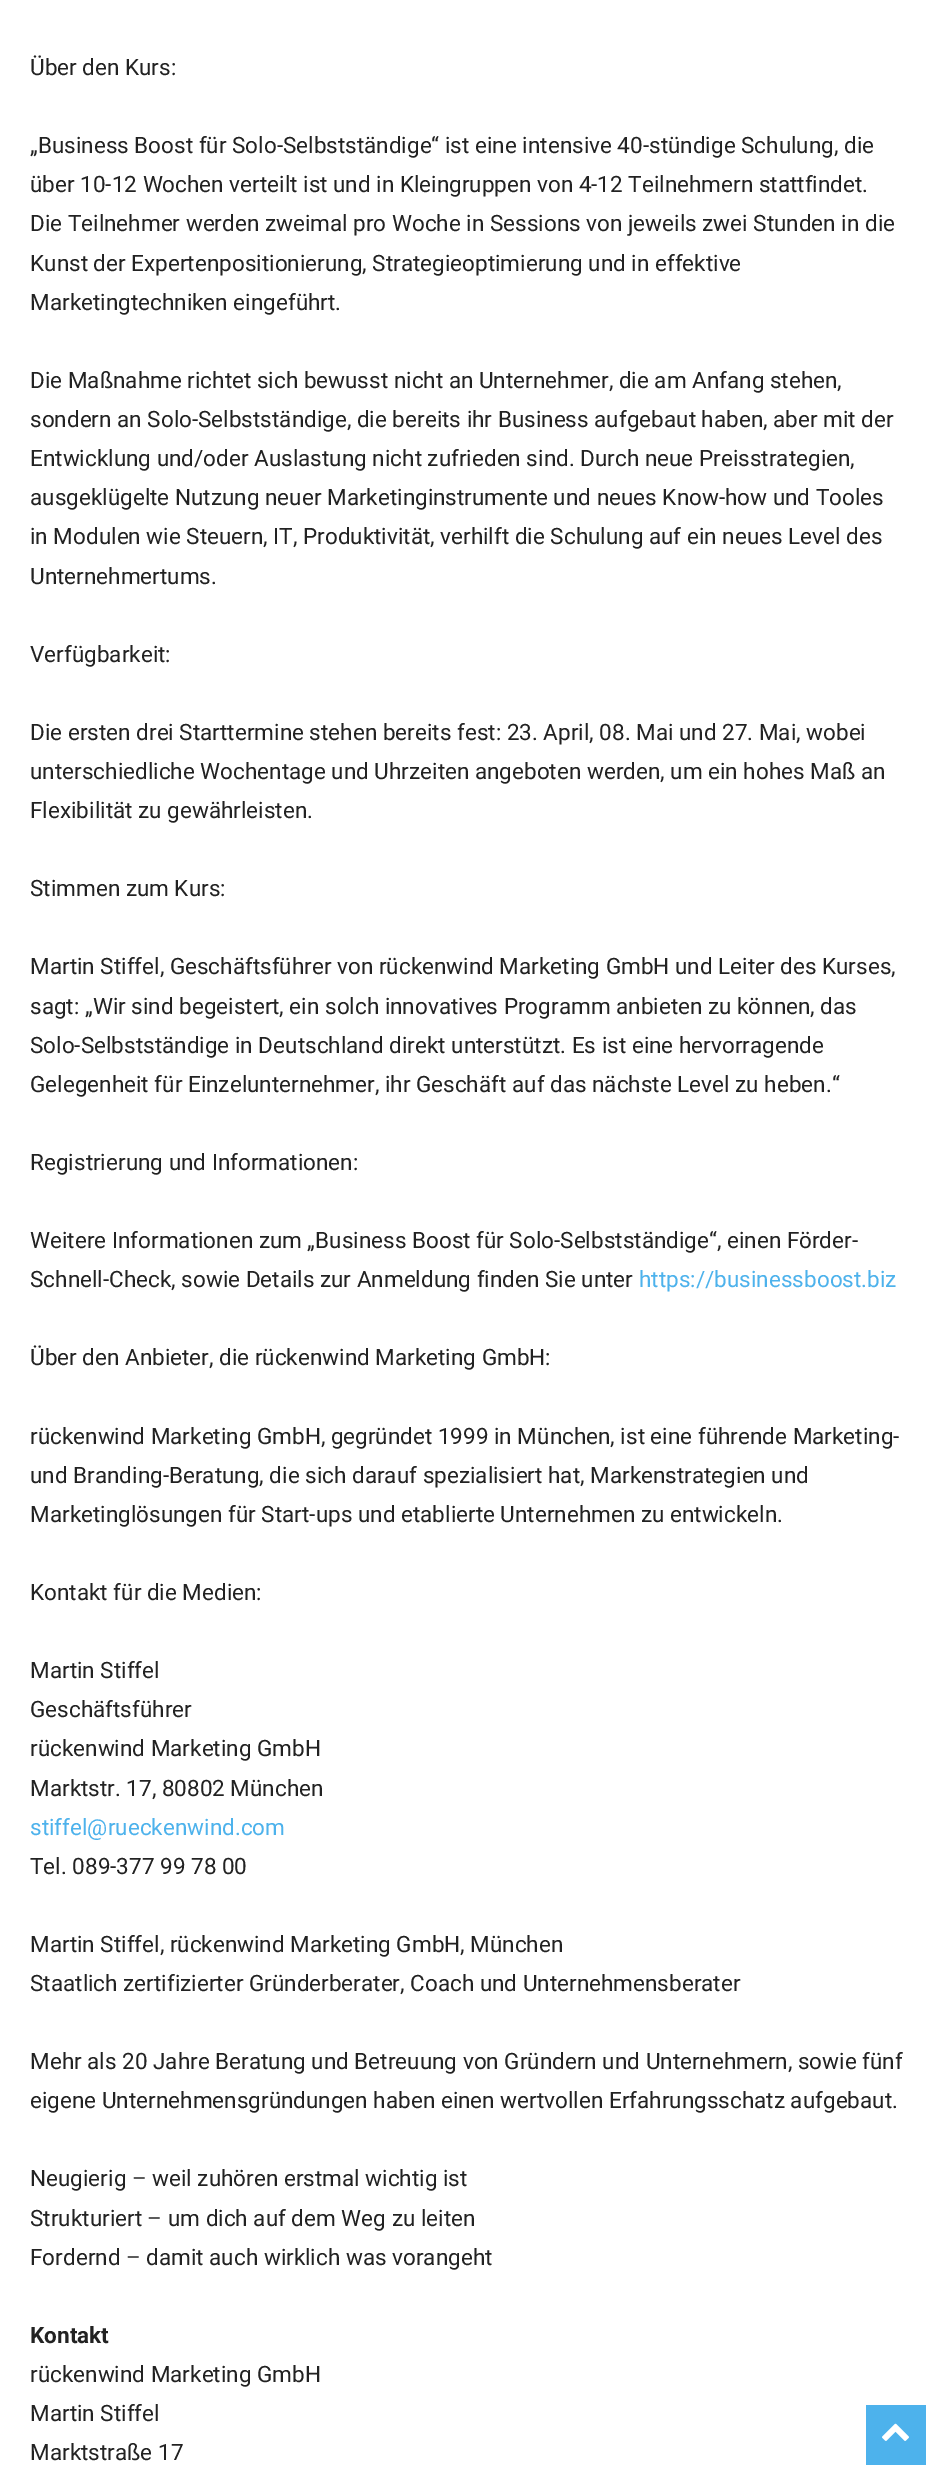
%!PS
<< /PageSize [933 2470] >> setpagedevice
/rgb { dup -16 bitshift 255 div exch dup -8 bitshift 255 and 255 div exch 255 and 255 div setrgbcolor } def
/font { [ exch dup neg 0 0 3 -1 roll 0 0 ] selectfont } def
/text { moveto show } def
/picture { 5 dict begin { /h /w /y /x /name } { exch def } forall
  gsave x y translate w h scale
  w h 8 [w 0 0 h 0 0] name (r) file false 3 colorimage grestore end } def
0 2470 translate 1 -1 scale
4 setmiterlimit
/s1 { /Roboto-Regular 22.5 font 16#222222 rgb } def
/s2 { /Roboto-Regular 22.5 font 16#4DB2EC rgb } def
/s3 { /Roboto-Bold 22.5 font 16#222222 rgb } def
16#FFFFFF rgb
0 0 933 2470 rectfill
s1
(Über den Kurs:) 30 75 text
(„Business Boost für Solo-Selbstständige“ ist eine intensive 40-stündige Schulung, die) 30 153 text
(über 10-12 Wochen verteilt ist und in Kleingruppen von 4-12 Teilnehmern stattfindet.) 30 192 text
(Die Teilnehmer werden zweimal pro Woche in Sessions von jeweils zwei Stunden in die) 30 231 text
(Kunst der Expertenpositionierung, Strategieoptimierung und in effektive) 30 271 text
(Marketingtechniken eingeführt.) 30 310 text
(Die Maßnahme richtet sich bewusst nicht an Unternehmer, die am Anfang stehen,) 30 388 text
(sondern an Solo-Selbstständige, die bereits ihr Business aufgebaut haben, aber mit der) 30 427 text
(Entwicklung und/oder Auslastung nicht zufrieden sind. Durch neue Preisstrategien,) 30 466 text
(ausgeklügelte Nutzung neuer Marketinginstrumente und neues Know-how und Tooles) 30 505 text
(in Modulen wie Steuern, IT, Produktivität, verhilft die Schulung auf ein neues Level des) 30 544 text
(Unternehmertums.) 30 584 text
(Verfügbarkeit:) 30 662 text
(Die ersten drei Starttermine stehen bereits fest: 23. April, 08. Mai und 27. Mai, wobei) 30 740 text
(unterschiedliche Wochentage und Uhrzeiten angeboten werden, um ein hohes Maß an) 30 779 text
(Flexibilität zu gewährleisten.) 30 818 text
(Stimmen zum Kurs:) 30 896 text
(Martin Stiffel, Geschäftsführer von rückenwind Marketing GmbH und Leiter des Kurses,) 30 974 text
(sagt: „Wir sind begeistert, ein solch innovatives Programm anbieten zu können, das) 30 1014 text
(Solo-Selbstständige in Deutschland direkt unterstützt. Es ist eine hervorragende) 30 1053 text
(Gelegenheit für Einzelunternehmer, ihr Geschäft auf das nächste Level zu heben.“) 30 1092 text
(Registrierung und Informationen:) 30 1170 text
(Weitere Informationen zum „Business Boost für Solo-Selbstständige“, einen Förder-) 30 1248 text
(Schnell-Check, sowie Details zur Anmeldung finden Sie unter) 30 1287 text
s2
(https://businessboost.biz) 639 1287 text
s1
(Über den Anbieter, die rückenwind Marketing GmbH:) 30 1365 text
(rückenwind Marketing GmbH, gegründet 1999 in München, ist eine führende Marketing-) 30 1444 text
(und Branding-Beratung, die sich darauf spezialisiert hat, Markenstrategien und) 30 1483 text
(Marketinglösungen für Start-ups und etablierte Unternehmen zu entwickeln.) 30 1522 text
(Kontakt für die Medien:) 30 1600 text
(Martin Stiffel) 30 1678 text
(Geschäftsführer) 30 1717 text
(rückenwind Marketing GmbH) 30 1756 text
(Marktstr. 17, 80802 München) 30 1796 text
s2
(stiffel@rueckenwind.com) 30 1835 text
s1
(Tel. 089-377 99 78 00) 30 1874 text
(Martin Stiffel, rückenwind Marketing GmbH, München) 30 1952 text
(Staatlich zertifizierter Gründerberater, Coach und Unternehmensberater) 30 1991 text
(Mehr als 20 Jahre Beratung und Betreuung von Gründern und Unternehmern, sowie fünf) 30 2069 text
(eigene Unternehmensgründungen haben einen wertvollen Erfahrungsschatz aufgebaut.) 30 2108 text
(Neugierig – weil zuhören erstmal wichtig ist) 30 2186 text
(Strukturiert – um dich auf dem Weg zu leiten) 30 2226 text
(Fordernd – damit auch wirklich was vorangeht) 30 2265 text
s3
(Kontakt) 30 2343 text
s1
(rückenwind Marketing GmbH) 30 2382 text
(Martin Stiffel) 30 2421 text
(Marktstraße 17) 30 2460 text
16#4DB2EC rgb
866 2405 60 60 rectfill
(pic1.raw) 882 2423 27 18 picture
showpage
